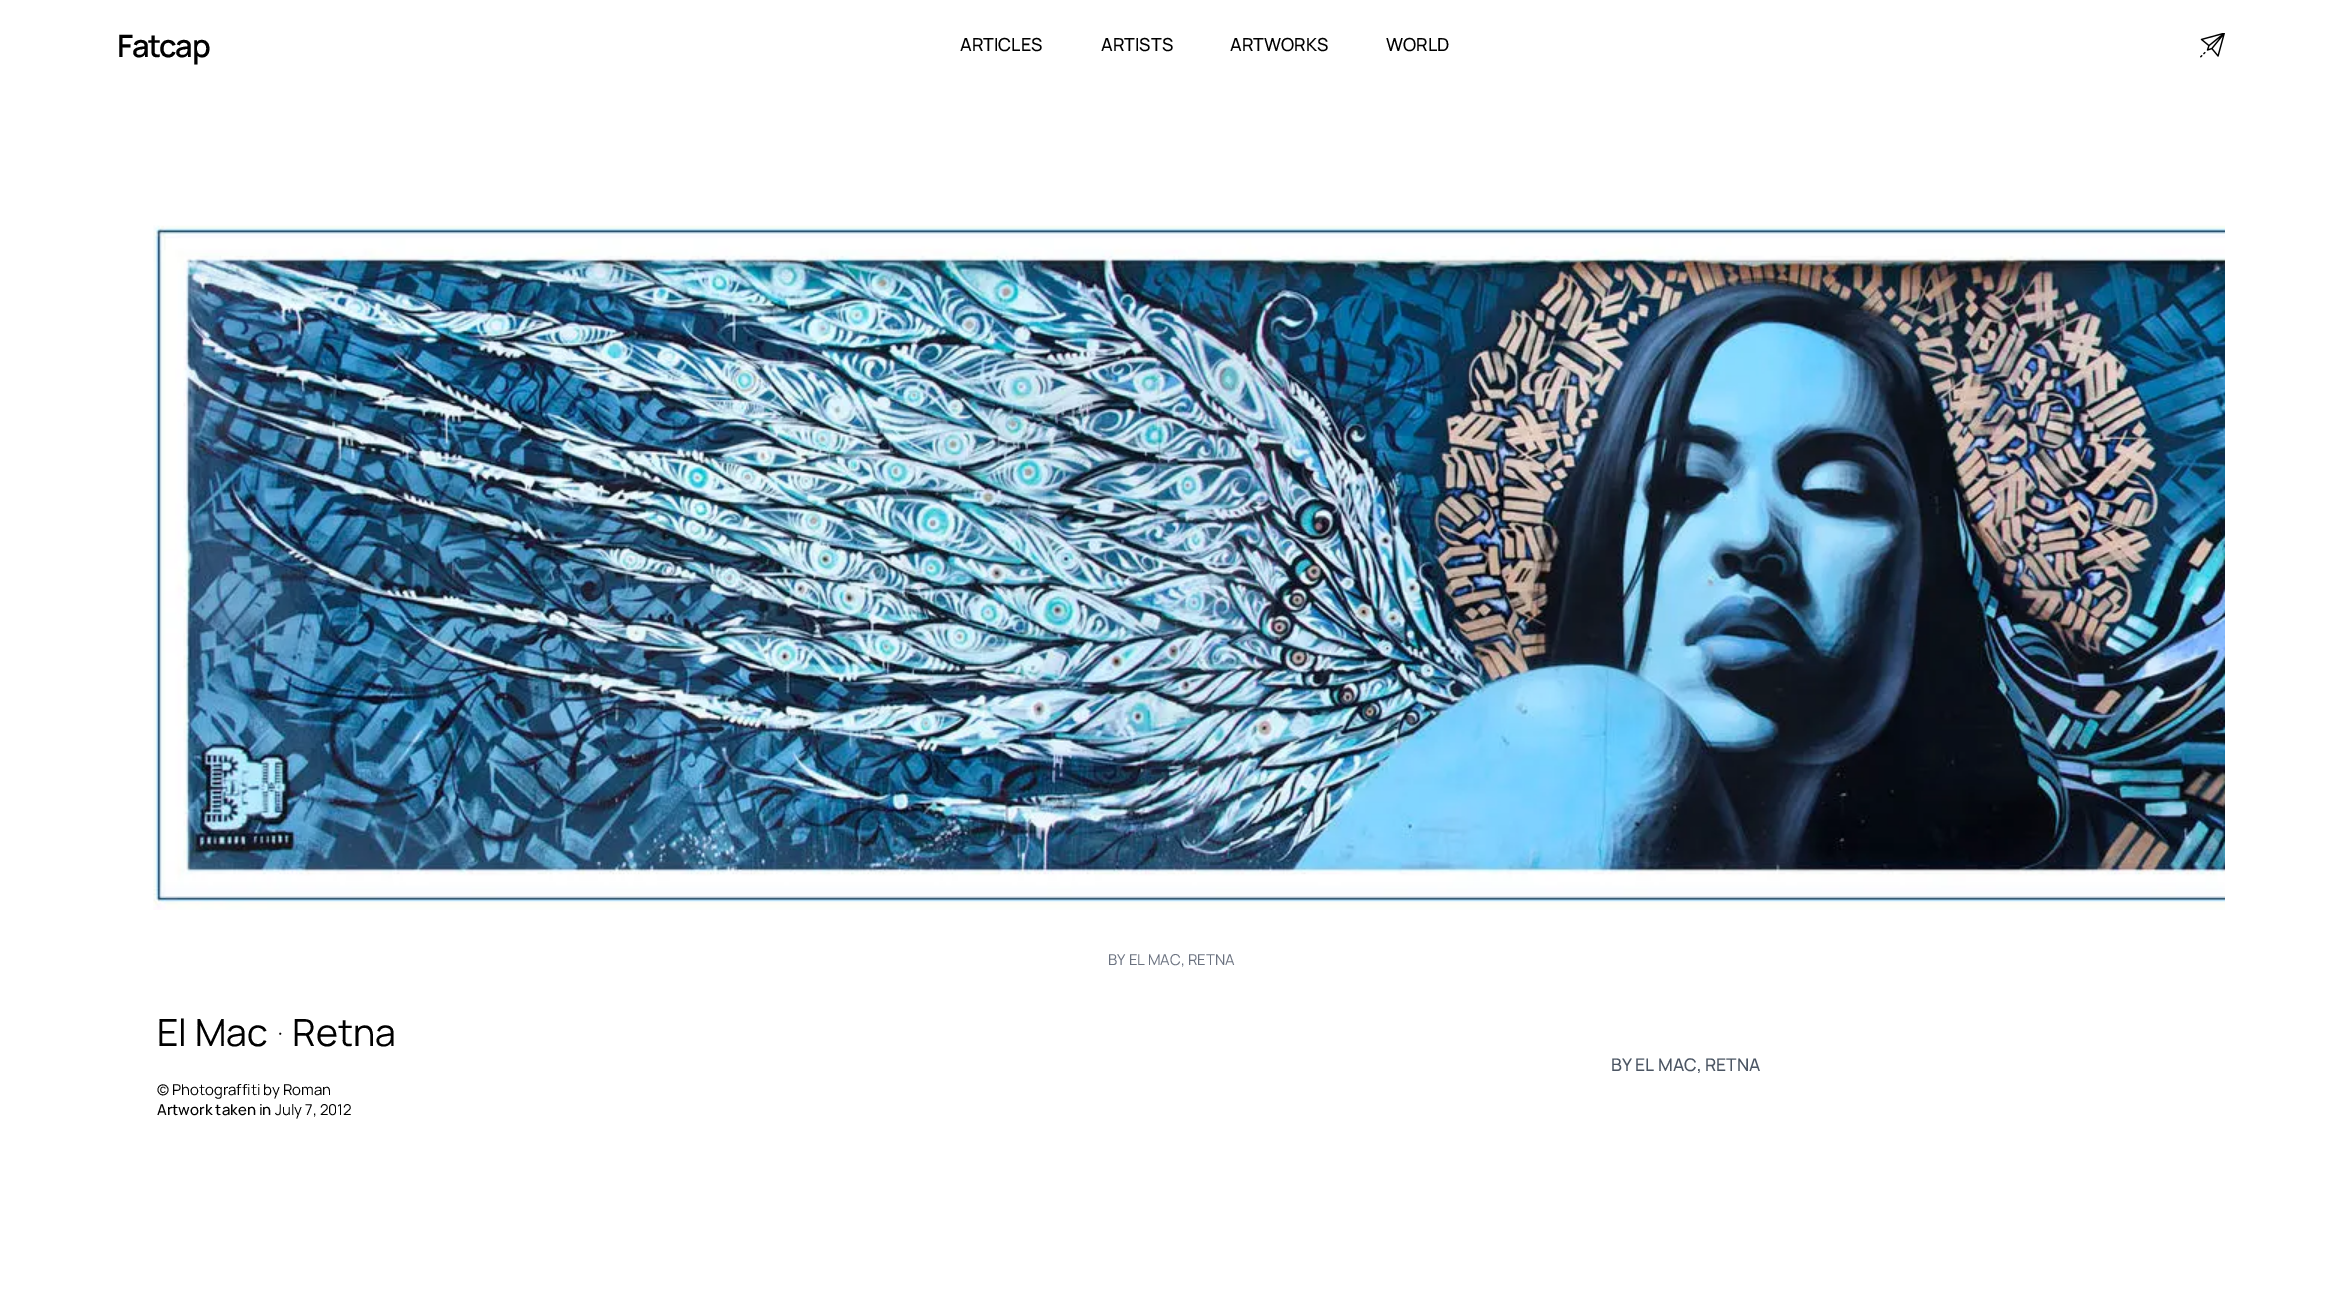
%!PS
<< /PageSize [2342 1311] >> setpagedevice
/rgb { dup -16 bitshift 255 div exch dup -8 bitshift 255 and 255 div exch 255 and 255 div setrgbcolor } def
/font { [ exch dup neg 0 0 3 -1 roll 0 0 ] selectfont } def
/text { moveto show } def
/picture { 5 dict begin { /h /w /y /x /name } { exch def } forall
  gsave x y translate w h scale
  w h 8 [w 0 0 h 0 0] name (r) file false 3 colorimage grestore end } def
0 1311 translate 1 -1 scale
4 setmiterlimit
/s1 { /Manrope-Medium 18 font 16#000000 rgb } def
/s2 { /Manrope-Regular 15 font 16#6B7280 rgb } def
/s3 { /Manrope-Regular 37.5 font 16#000000 rgb } def
/s4 { /Manrope-Regular 20 font 16#000000 rgb } def
/s5 { /Manrope-Regular 15 font 16#000000 rgb } def
/s6 { /Manrope-Medium 15 font 16#000000 rgb } def
/s7 { /Manrope-Medium 17.5 font 16#4B5563 rgb } def
16#FFFFFF rgb
0 0 2342 1311 rectfill
/Manrope-SemiBold 31 font
16#000000 rgb
117 57 moveto -1.5 0 (Fatcap) ashow
s1
(ARTICLES) 960 51 text
(ARTISTS) 1101 51 text
(ARTWORKS) 1230 51 text
(WORLD) 1386 51 text
(pic1.raw) 2200 33 25 25 picture
(pic2.raw) 153 225 2072 685 picture
s2
(BY EL MAC, RETNA) 1108 965 text
s3
(El Mac) 157 1046 text
s4
(·) 278 1040 text
s3
(Retna) 292 1046 text
s5
(© Photograffiti by Roman) 157 1095 text
s6
(Artwork taken in) 157 1115 text
s5
(July 7, 2012) 275 1115 text
s7
(BY EL MAC, RETNA) 1611 1071 text
showpage
